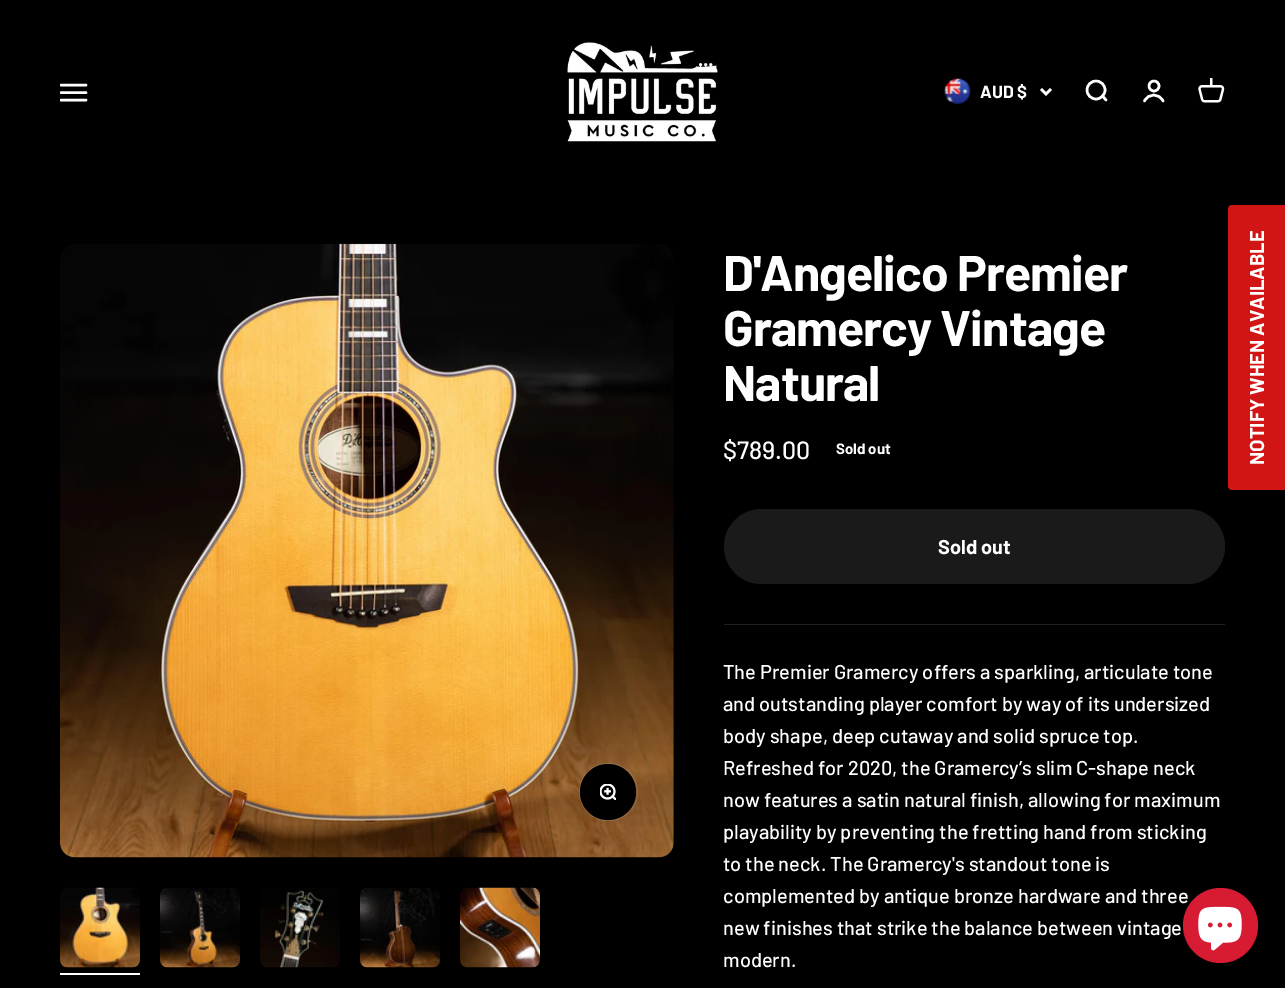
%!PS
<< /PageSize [1285 988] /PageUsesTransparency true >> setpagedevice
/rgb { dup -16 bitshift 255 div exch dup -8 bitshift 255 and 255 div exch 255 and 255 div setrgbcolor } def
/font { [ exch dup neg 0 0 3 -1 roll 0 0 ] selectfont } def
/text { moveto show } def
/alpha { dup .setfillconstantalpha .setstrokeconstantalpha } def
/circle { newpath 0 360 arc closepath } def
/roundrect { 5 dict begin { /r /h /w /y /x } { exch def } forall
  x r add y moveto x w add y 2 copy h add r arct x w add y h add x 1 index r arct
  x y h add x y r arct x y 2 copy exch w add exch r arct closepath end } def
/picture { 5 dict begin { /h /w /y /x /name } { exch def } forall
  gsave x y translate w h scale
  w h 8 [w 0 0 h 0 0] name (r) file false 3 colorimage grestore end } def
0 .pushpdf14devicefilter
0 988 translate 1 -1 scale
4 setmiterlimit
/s1 { /Barlow-Bold 17.5 font 16#FFFFFF rgb } def
/s2 { /Barlow-Medium 25 font 16#FFFFFF rgb } def
/s3 { /Barlow-Bold 15 font 16#FFFFFF rgb } def
/s4 { /Barlow-Bold 20 font 16#FFFFFF rgb } def
/s5 { /Barlow-Medium 20 font 16#FFFFFF rgb } def
16#000000 rgb
0 0 1285 988 rectfill
gsave
60 79 28 27 rectclip
16#FFFFFF rgb
2.5 setlinewidth
1 setlinecap
61 85 moveto 86 85 lineto 61 92.5 moveto 86 92.5 lineto 61 100 moveto 86 100 lineto stroke
grestore
(pic1.raw) 567 42 151 100 picture
(pic2.raw) 944 78 27 26 picture
s1
(AUD $) 980 98 text
2.5 setlinewidth
1041 89 moveto 1046 94 lineto 1051 89 lineto stroke
1096 90 9 circle stroke
1 setlinecap
1 setlinejoin
1102.5 96 moveto 1106 100 lineto stroke
0 setlinecap
0 setlinejoin
1154 86 5 circle stroke
1 setlinecap
1144.5 101 moveto 1148.5 93 1159 93 1163 101 curveto stroke
(pic3.raw) 1198 78 27 25 picture
(pic4.raw) 60 243 614 615 picture
0.12 alpha
1 setlinewidth
0 setlinecap
579.5 763.5 58 57 28.5 roundrect stroke
1 alpha
16#000000 rgb
608 792 28 circle fill
(pic5.raw) 600 784 16 16 picture
(pic6.raw) 60 887 80 81 picture
16#FFFFFF rgb
60 973 80 2 rectfill
(pic7.raw) 160 888 80 80 picture
(pic8.raw) 260 888 80 80 picture
(pic9.raw) 360 888 80 80 picture
(pic10.raw) 460 887 80 81 picture
/Barlow-Bold 50 font
723 291 moveto -1 0 (D'Angelico Premier) ashow
723 346 moveto -1 0 (Gramercy Vintage) ashow
723 401 moveto -1 0 (Natural) ashow
s2
($789.00) 723 459 text
s3
(Sold out) 836 454 text
16#1A1A1A rgb
724 509 501 75 37.5 roundrect fill
s4
(Sold out) 938 554 text
16#1F1F1F rgb
724 624 501 1 rectfill
s5
(The Premier Gramercy offers a sparkling, articulate tone) 723 679 text
(and outstanding player comfort by way of its undersized) 723 711 text
(body shape, deep cutaway and solid spruce top.) 723 743 text
(Refreshed for 2020, the Gramercy’s slim C-shape neck) 723 775 text
(now features a satin natural finish, allowing for maximum) 723 807 text
(playability by preventing the fretting hand from sticking) 723 839 text
(to the neck. The Gramercy's standout tone is) 723 871 text
(complemented by antique bronze hardware and three) 723 903 text
(new finishes that strike the balance between vintage) 723 935 text
(modern.) 723 967 text
16#D11414 rgb
1228 486 moveto 1228 209 lineto 1228 207 1230 205 1232 205 curveto 1285 205 lineto 1285 490 lineto 1232 490 lineto 1230 490 1228 488 1228 486 curveto closepath fill
/Barlow-Bold 20 font
16#FFFFFF rgb
gsave 1264 465 translate -90 rotate 0 0 moveto (NOTIFY WHEN AVAILABLE) show grestore
16#D71B32 rgb
1220.5 925.5 37.5 circle fill
(pic11.raw) 1198 906 44 45 picture
.poppdf14devicefilter showpage
